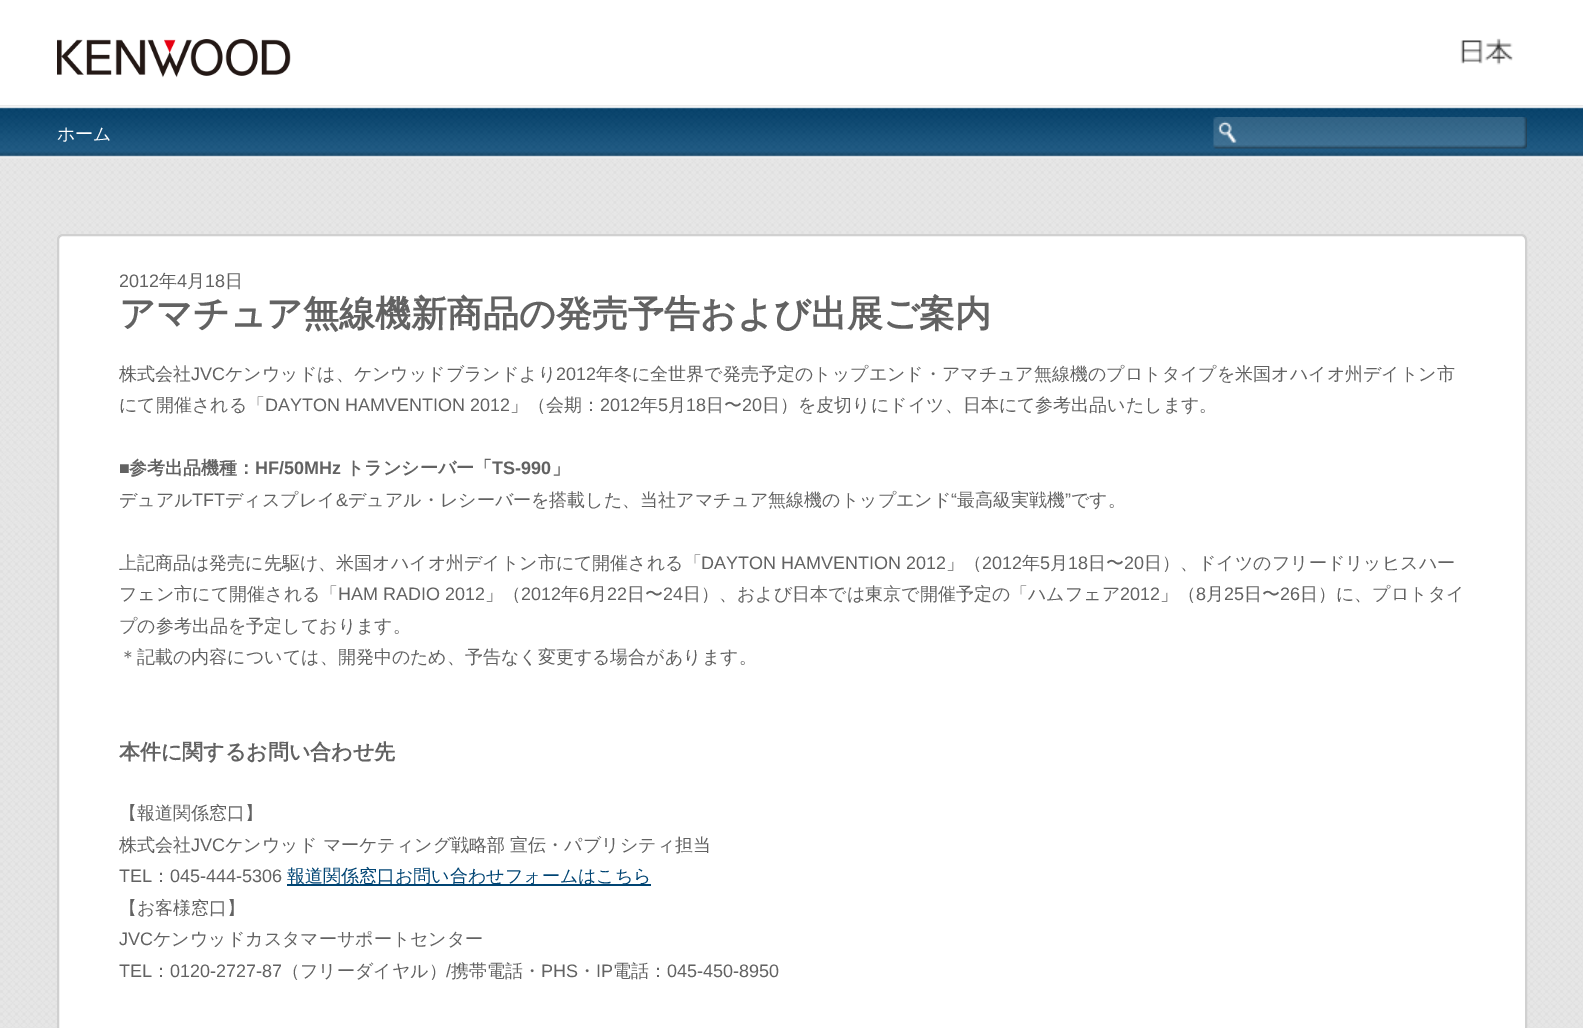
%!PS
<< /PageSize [1583 1028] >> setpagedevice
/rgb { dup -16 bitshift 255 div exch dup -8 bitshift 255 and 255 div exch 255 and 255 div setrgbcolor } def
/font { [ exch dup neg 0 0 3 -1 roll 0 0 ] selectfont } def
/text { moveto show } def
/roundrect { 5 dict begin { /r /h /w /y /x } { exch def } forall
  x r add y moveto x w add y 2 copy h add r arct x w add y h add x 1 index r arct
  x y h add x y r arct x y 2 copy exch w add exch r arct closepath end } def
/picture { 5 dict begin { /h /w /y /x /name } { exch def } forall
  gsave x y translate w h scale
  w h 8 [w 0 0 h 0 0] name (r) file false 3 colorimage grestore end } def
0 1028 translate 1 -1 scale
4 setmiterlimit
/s1 { /WenQuanYiZenHei-Medium 18 font 16#FFFFFF rgb } def
/s2 { /LiberationSans-Regular 18 font 16#626262 rgb } def
/s3 { /WenQuanYiZenHei-Medium 18 font 16#626262 rgb } def
/s4 { /WenQuanYiZenHei-Bold 36 font 16#626262 rgb } def
/s5 { /LiberationSans-Bold 18 font 16#626262 rgb } def
/s6 { /WenQuanYiZenHei-Bold 18 font 16#626262 rgb } def
/s7 { /WenQuanYiZenHei-Bold 21 font 16#626262 rgb } def
/s8 { /WenQuanYiZenHei-Medium 18 font 16#004473 rgb } def
16#FFFFFF rgb
0 0 1583 1028 rectfill
(pic1.raw) 0 401 1583 627 picture
(pic2.raw) 0 105 1583 54 picture
(pic3.raw) 57 39 234 39 picture
(pic4.raw) 1460 38 53 27 picture
s1
(ホーム) 57 140 text
(pic5.raw) 1213 117 314 32 picture
(pic6.raw) 0 159 1583 367 picture
58 235 1468 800 5 roundrect gsave fill grestore
16#D0D0D0 rgb
2 setlinewidth
stroke
s2
(2012) 119 287 text
s3
(年) 159 287 text
s2
(4) 177 287 text
s3
(月) 187 287 text
s2
(18) 205 287 text
s3
(日) 225 287 text
s4
(アマチュア無線機新商品の発売予告および出展ご案内) 119 326 text
s3
(株式会社) 119 380 text
s2
(JVC) 191 380 text
s3
(ケンウッドは、ケンウッドブランドより) 225 380 text
s2
(2012) 556 380 text
s3
(年冬に全世界で発売予定のトップエンド・アマチュア無線機のプロトタイプを米国オハイオ州デイトン市) 596 380 text
(にて開催される「) 119 411 text
s2
(DAYTON HAMVENTION 2012) 265 411 text
s3
(」（会期：) 510 411 text
s2
(2012) 600 411 text
s3
(年) 640 411 text
s2
(5) 658 411 text
s3
(月) 668 411 text
s2
(18) 686 411 text
s3
(日〜) 706 411 text
s2
(20) 742 411 text
s3
(日）を皮切りにドイツ、日本にて参考出品いたします。) 762 411 text
s5
(■) 119 474 text
s6
(参考出品機種：) 129 474 text
s5
(HF/50MHz) 255 474 text
s6
(トランシーバー「) 346 474 text
s5
(TS-990) 492 474 text
s6
(」) 552 474 text
s3
(デュアル) 119 506 text
s2
(TFT) 192 506 text
s3
(ディスプレイ) 225 506 text
s2
(&) 336 506 text
s3
(デュアル・レシーバーを搭載した、当社アマチュア無線機のトップエンド) 348 506 text
s2
(“) 951 506 text
s3
(最高級実戦機) 957 506 text
s2
(”) 1065 506 text
s3
(です。) 1071 506 text
(上記商品は発売に先駆け、米国オハイオ州デイトン市にて開催される「) 119 569 text
s2
(DAYTON HAMVENTION 2012) 701 569 text
s3
(」（) 946 569 text
s2
(2012) 982 569 text
s3
(年) 1022 569 text
s2
(5) 1040 569 text
s3
(月) 1050 569 text
s2
(18) 1068 569 text
s3
(日〜) 1088 569 text
s2
(20) 1124 569 text
s3
(日）、ドイツのフリードリッヒスハー) 1144 569 text
(フェン市にて開催される「) 119 600 text
s2
(HAM RADIO 2012) 338 600 text
s3
(」（) 485 600 text
s2
(2012) 521 600 text
s3
(年) 561 600 text
s2
(6) 579 600 text
s3
(月) 589 600 text
s2
(22) 607 600 text
s3
(日〜) 627 600 text
s2
(24) 663 600 text
s3
(日）、および日本では東京で開催予定の「ハムフェア) 683 600 text
s2
(2012) 1120 600 text
s3
(」（) 1160 600 text
s2
(8) 1196 600 text
s3
(月) 1206 600 text
s2
(25) 1224 600 text
s3
(日〜) 1244 600 text
s2
(26) 1280 600 text
s3
(日）に、プロトタイ) 1300 600 text
(プの参考出品を予定しております。) 119 632 text
(＊記載の内容については、開発中のため、予告なく変更する場合があります。) 119 663 text
s7
(本件に関するお問い合わせ先) 119 759 text
s3
(【報道関係窓口】) 119 819 text
(株式会社) 119 851 text
s2
(JVC) 191 851 text
s3
(ケンウッド マーケティング戦略部 宣伝・パブリシティ担当) 225 851 text
s2
(TEL) 119 882 text
s3
(：) 152 882 text
s2
(045-444-5306) 170 882 text
16#004473 rgb
287 884 364 2 rectfill
s8
(報道関係窓口お問い合わせフォームはこちら) 287 882 text
s3
(【お客様窓口】) 119 914 text
s2
(JVC) 119 945 text
s3
(ケンウッドカスタマーサポートセンター) 153 945 text
s2
(TEL) 119 977 text
s3
(：) 152 977 text
s2
(0120-2727-87) 170 977 text
s3
(（フリーダイヤル）) 282 977 text
s2
(/) 446 977 text
s3
(携帯電話・) 451 977 text
s2
(PHS) 541 977 text
s3
(・) 578 977 text
s2
(IP) 596 977 text
s3
(電話：) 613 977 text
s2
(045-450-8950) 667 977 text
showpage
